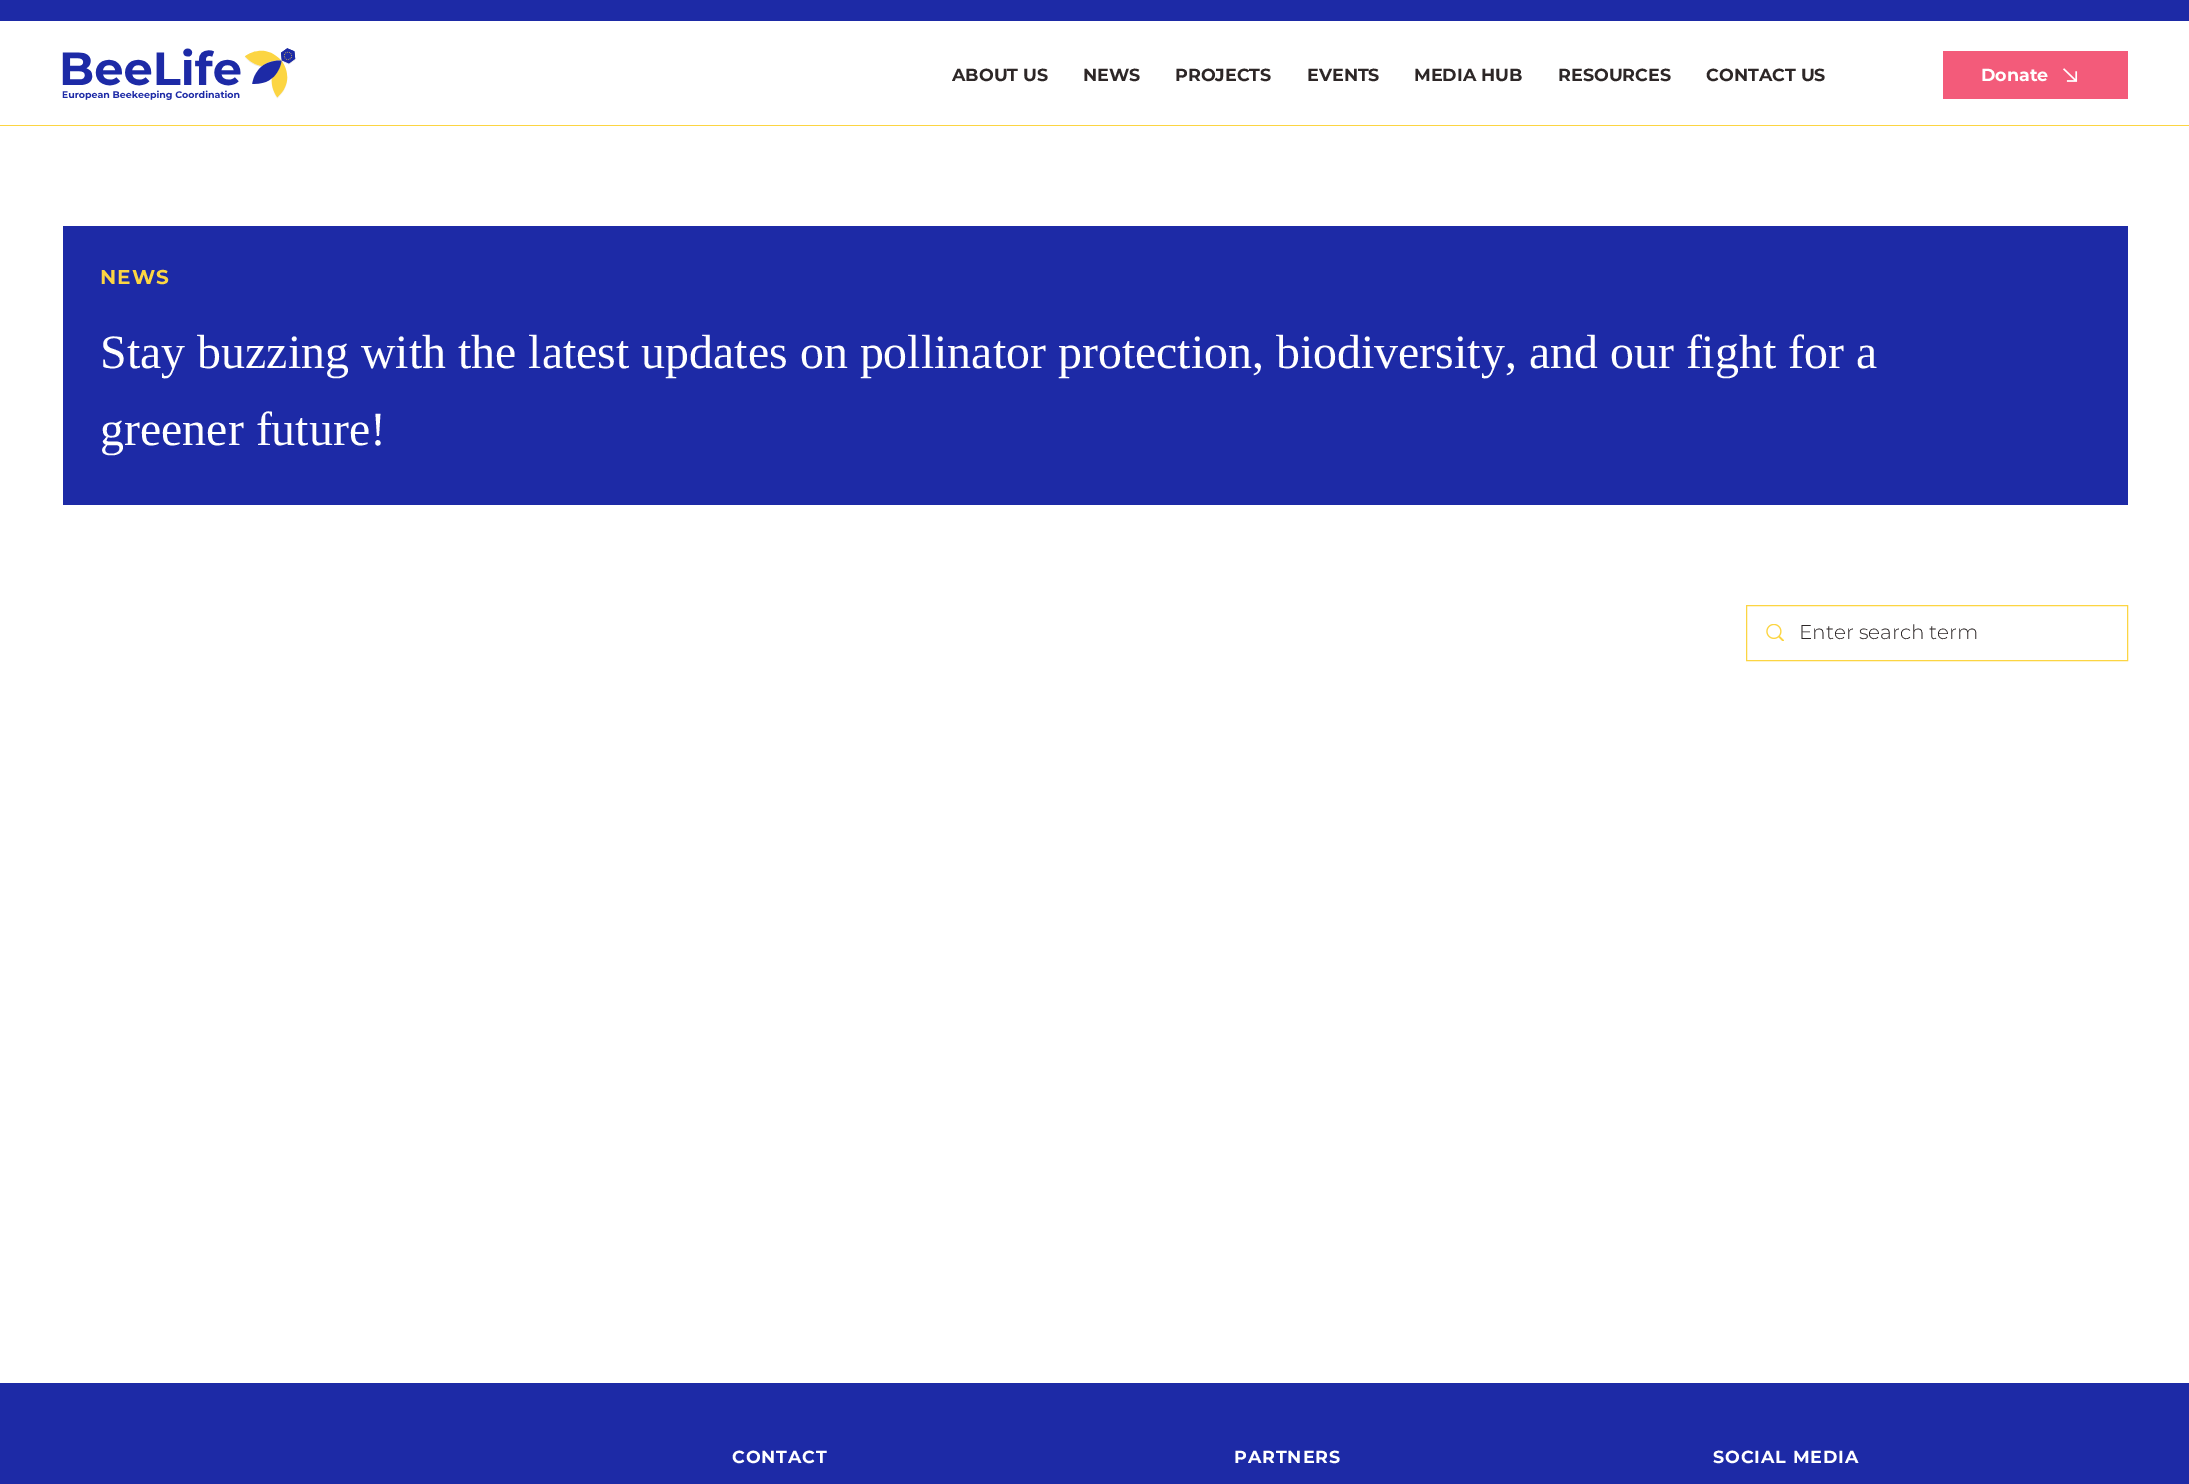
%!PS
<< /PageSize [2189 1484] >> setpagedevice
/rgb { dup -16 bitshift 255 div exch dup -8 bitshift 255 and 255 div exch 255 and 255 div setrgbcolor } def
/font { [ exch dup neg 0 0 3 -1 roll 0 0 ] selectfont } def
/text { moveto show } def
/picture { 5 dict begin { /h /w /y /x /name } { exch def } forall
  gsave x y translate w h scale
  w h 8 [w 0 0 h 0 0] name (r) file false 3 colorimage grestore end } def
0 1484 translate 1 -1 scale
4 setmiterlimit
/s1 { /Montserrat-Bold 17.5 font 16#2D2727 rgb } def
/s2 { /Montserrat-Bold 17.5 font 16#FFFFFF rgb } def
/s3 { /LiberationSerif-Regular 47.9 font 16#FFFFFF rgb } def
/s4 { /Montserrat-Light 20 font 16#2D2727 rgb } def
16#FFFFFF rgb
0 0 2189 1484 rectfill
16#1D2AA6 rgb
0 0 2189 21 rectfill
(pic1.raw) 62 48 234 52 picture
s1
(ABOUT US) 952 81 text
(NEWS) 1083 81 text
(PROJECTS) 1175 81 text
(EVENTS) 1307 81 text
(MEDIA HUB) 1414 81 text
(RESOURCES) 1558 81 text
(CONTACT US) 1706 81 text
16#F35B7A rgb
1943 51 185 48 rectfill
s2
(Donate) 1981 81 text
(pic2.raw) 2063 68 15 14 picture
16#FCD542 rgb
0 125 2189 1 rectfill
16#1D2AA6 rgb
63 226 2065 279 rectfill
/Montserrat-Bold 20 font
16#FCD542 rgb
100 284 moveto 1 0 (NEWS) ashow
s3
(Stay buzzing with the latest updates on pollinator protection, biodiversity, and our fight for a) 100 368 text
(greener future!) 100 445 text
16#FCD542 rgb
1746.5 605.5 381 55 rectstroke
(pic3.raw) 1766 624 18 17 picture
s4
(Enter search term) 1799 639 text
16#1D2AA6 rgb
0 1383 2189 101 rectfill
/Montserrat-Bold 17.5 font
16#FFFFFF rgb
732 1463 moveto 0.9 0 (CONTACT) ashow
1234 1463 moveto 0.9 0 (PARTNERS) ashow
1713 1463 moveto 0.9 0 (SOCIAL MEDIA) ashow
showpage
